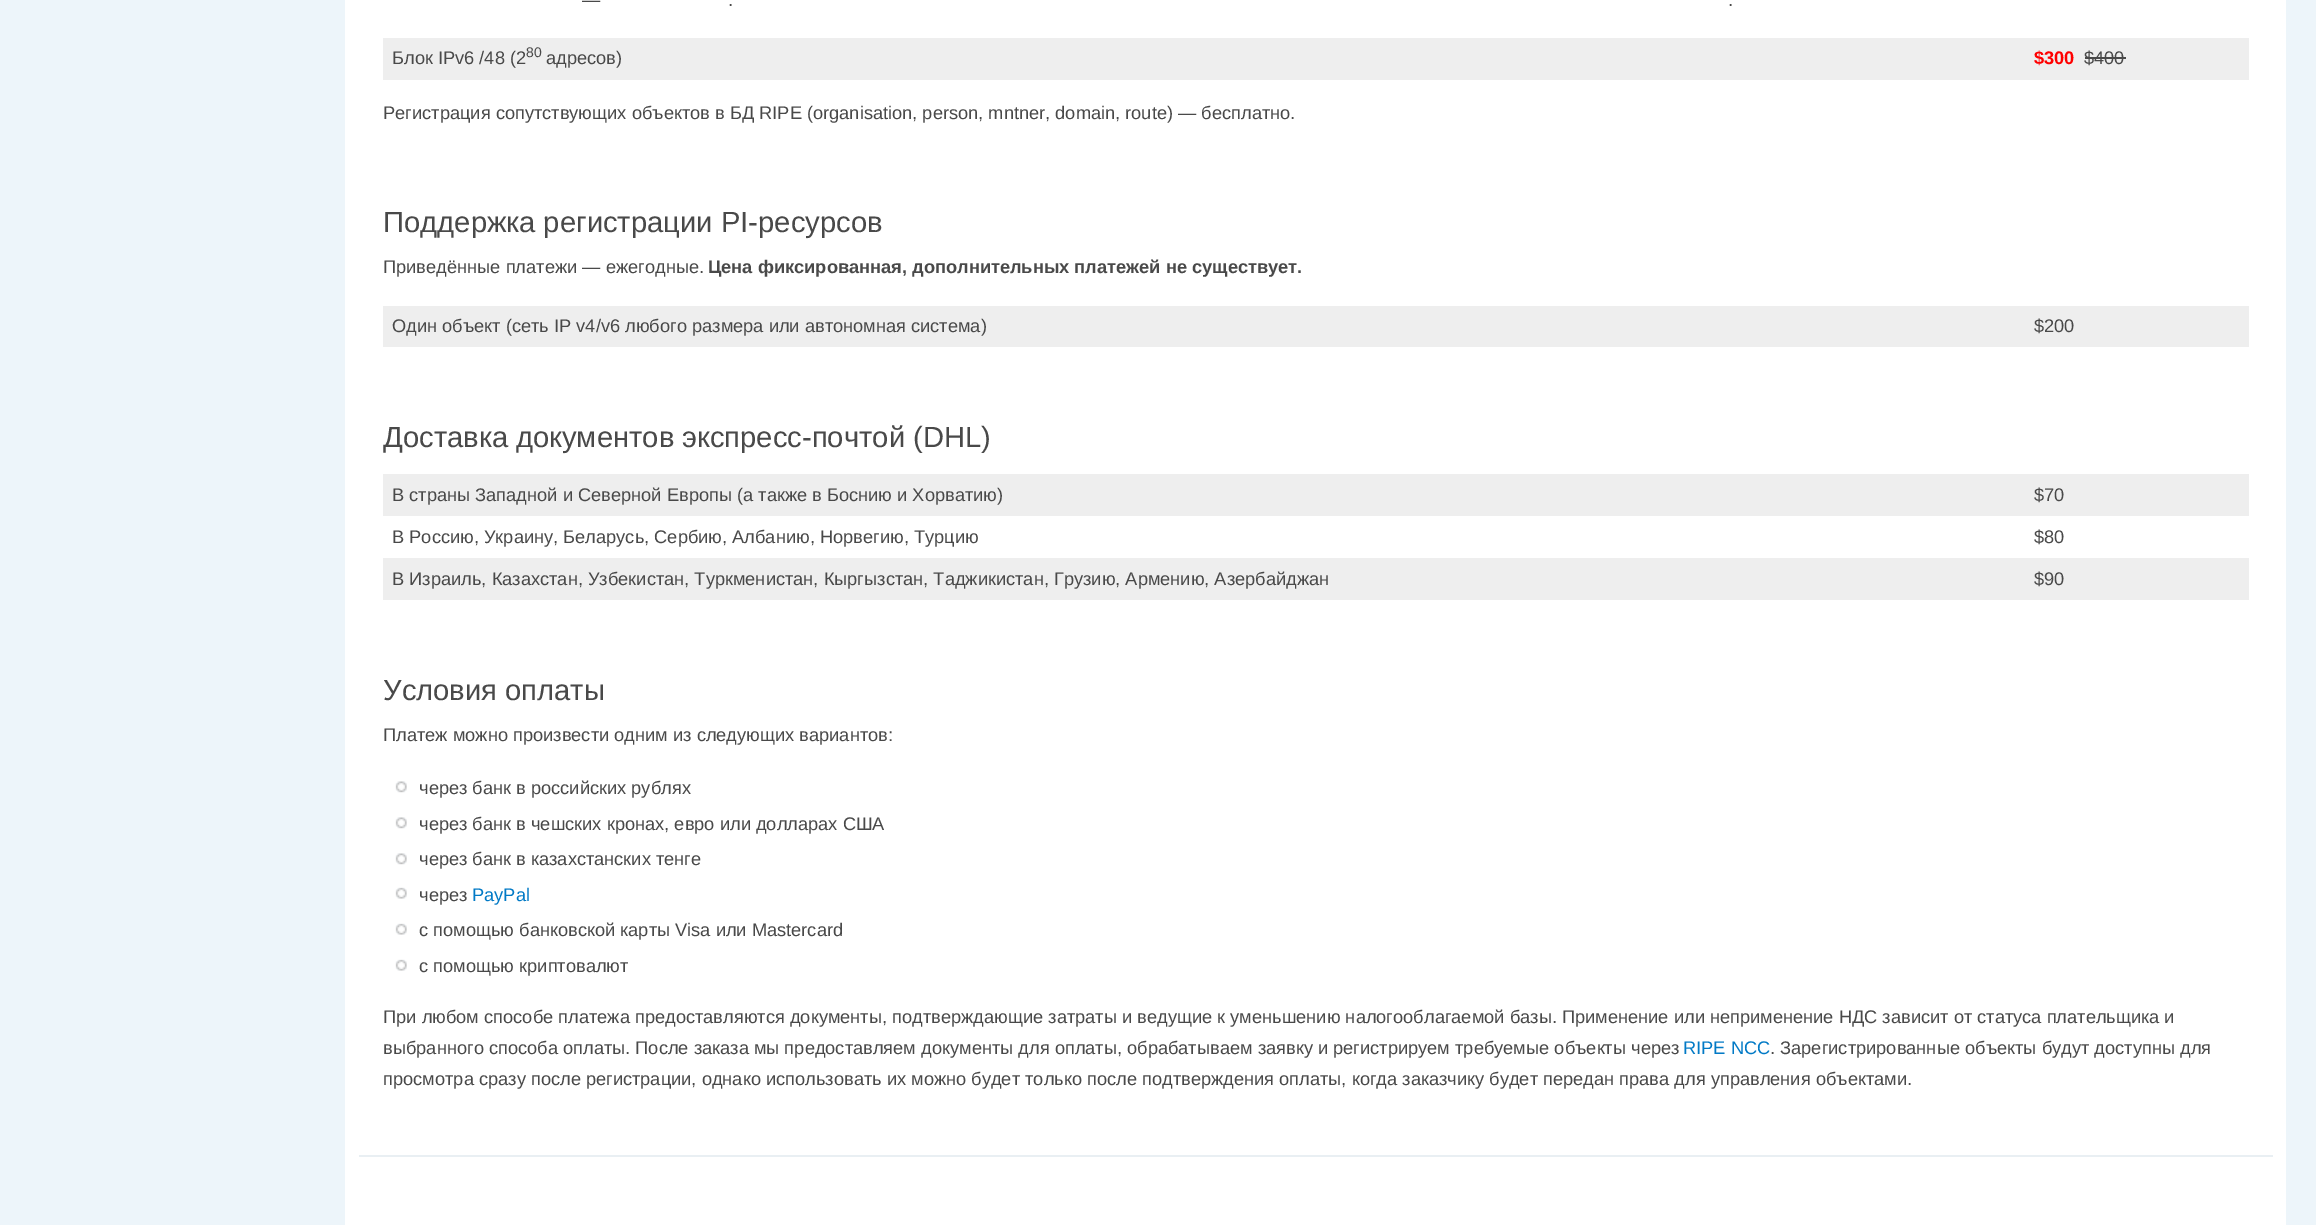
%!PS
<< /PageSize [2316 1225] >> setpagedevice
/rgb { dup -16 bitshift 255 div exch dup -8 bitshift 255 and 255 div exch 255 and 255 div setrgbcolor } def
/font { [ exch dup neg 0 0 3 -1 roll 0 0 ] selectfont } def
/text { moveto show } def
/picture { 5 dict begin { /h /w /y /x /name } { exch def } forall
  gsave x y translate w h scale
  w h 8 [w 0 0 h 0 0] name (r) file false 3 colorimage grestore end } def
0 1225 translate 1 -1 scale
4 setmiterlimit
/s1 { /LiberationSans-Regular 18.25 font 16#494949 rgb } def
/s2 { /LiberationSans-Regular 14 font 16#494949 rgb } def
/s3 { /LiberationSans-Bold 18.25 font 16#FF0000 rgb } def
/s4 { /LiberationSans-Regular 29.2 font 16#494949 rgb } def
/s5 { /LiberationSans-Bold 18.25 font 16#494949 rgb } def
/s6 { /LiberationSans-Regular 18.25 font 16#027AC6 rgb } def
16#FFFFFF rgb
0 0 2316 1225 rectfill
gsave 0 0 moveto 2316 0 lineto 2316 1225 lineto 0 1225 lineto closepath clip newpath
<< /ShadingType 2 /ColorSpace /DeviceRGB /Coords [1158 -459 1158 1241] /Extend [true true] /Function << /FunctionType 3 /Domain [0 1] /Functions [<< /FunctionType 2 /Domain [0 1] /C0 [0.792 0.886 0.941] /C1 [0.929 0.961 0.98] /N 1 >> << /FunctionType 2 /Domain [0 1] /C0 [0.929 0.961 0.98] /C1 [0.929 0.961 0.98] /N 1 >>] /Bounds [0.16] /Encode [0 1 0 1] >> >> shfill grestore
gsave 345 0 moveto 2286 0 lineto 2286 1225 lineto 345 1225 lineto closepath clip newpath
<< /ShadingType 2 /ColorSpace /DeviceRGB /Coords [1315 -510 1316 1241] /Extend [true true] /Function << /FunctionType 3 /Domain [0 1] /Functions [<< /FunctionType 2 /Domain [0 1] /C0 [0.922 0.957 0.976] /C1 [1 1 1] /N 1 >> << /FunctionType 2 /Domain [0 1] /C0 [1 1 1] /C1 [1 1 1] /N 1 >>] /Bounds [0.15] /Encode [0 1 0 1] >> >> shfill grestore
16#E9EFF3 rgb
359 1155 1914 2 rectfill
s1
(—) 582 6 text
(.) 728 6 text
(.) 1728 6 text
16#EEEEEE rgb
383 38 1866 42 rectfill
s1
(Блок IPv6 /48 \(2) 392 64 text
s2
(80) 526 57 text
s1
(адресов\)) 546 64 text
s3
($300) 2034 64 text
s1
($400) 2084 64 text
2085 57 41 2 rectfill
(Регистрация сопутствующих объектов в БД RIPE \(organisation, person, mntner, domain, route\) — бесплатно.) 383 119 text
s4
(Поддержка регистрации PI-ресурсов) 383 232 text
s1
(Приведённые платежи — ежегодные.) 383 273 text
s5
(Цена фиксированная, дополнительных платежей не существует.) 708 273 text
16#EEEEEE rgb
383 306 1866 41 rectfill
s1
(Один объект \(сеть IP v4/v6 любого размера или автономная система\)) 392 332 text
($200) 2034 332 text
s4
(Доставка документов экспресс-почтой \(DHL\)) 383 447 text
16#EEEEEE rgb
383 474 1866 42 rectfill
s1
(В страны Западной и Северной Европы \(а также в Боснию и Хорватию\)) 392 501 text
($70) 2034 501 text
(В Россию, Украину, Беларусь, Сербию, Албанию, Норвегию, Турцию) 392 543 text
($80) 2034 543 text
16#EEEEEE rgb
383 558 1866 42 rectfill
s1
(В Израиль, Казахстан, Узбекистан, Туркменистан, Кыргызстан, Таджикистан, Грузию, Армению, Азербайджан) 392 585 text
($90) 2034 585 text
s4
(Условия оплаты) 383 700 text
s1
(Платеж можно произвести одним из следующих вариантов:) 383 741 text
(pic1.raw) 395 781 12 12 picture
(через банк в российских рублях) 419 794 text
(pic1.raw) 395 817 12 12 picture
(через банк в чешских кронах, евро или долларах США) 419 830 text
(pic1.raw) 395 853 12 12 picture
(через банк в казахстанских тенге) 419 865 text
(pic2.raw) 395 887 12 12 picture
(через) 419 901 text
s6
(PayPal) 472 901 text
(pic2.raw) 395 923 12 12 picture
s1
(с помощью банковской карты Visa или Mastercard) 419 936 text
(pic2.raw) 395 959 12 12 picture
(с помощью криптовалют) 419 972 text
(При любом способе платежа предоставляются документы, подтверждающие затраты и ведущие к уменьшению налогооблагаемой базы. Применение или неприменение НДС зависит от статуса плательщика и) 383 1023 text
(выбранного способа оплаты. После заказа мы предоставляем документы для оплаты, обрабатываем заявку и регистрируем требуемые объекты через) 383 1054 text
s6
(RIPE NCC) 1683 1054 text
s1
(. Зарегистрированные объекты будут доступны для) 1770 1054 text
(просмотра сразу после регистрации, однако использовать их можно будет только после подтверждения оплаты, когда заказчику будет передан права для управления объектами.) 383 1085 text
showpage
